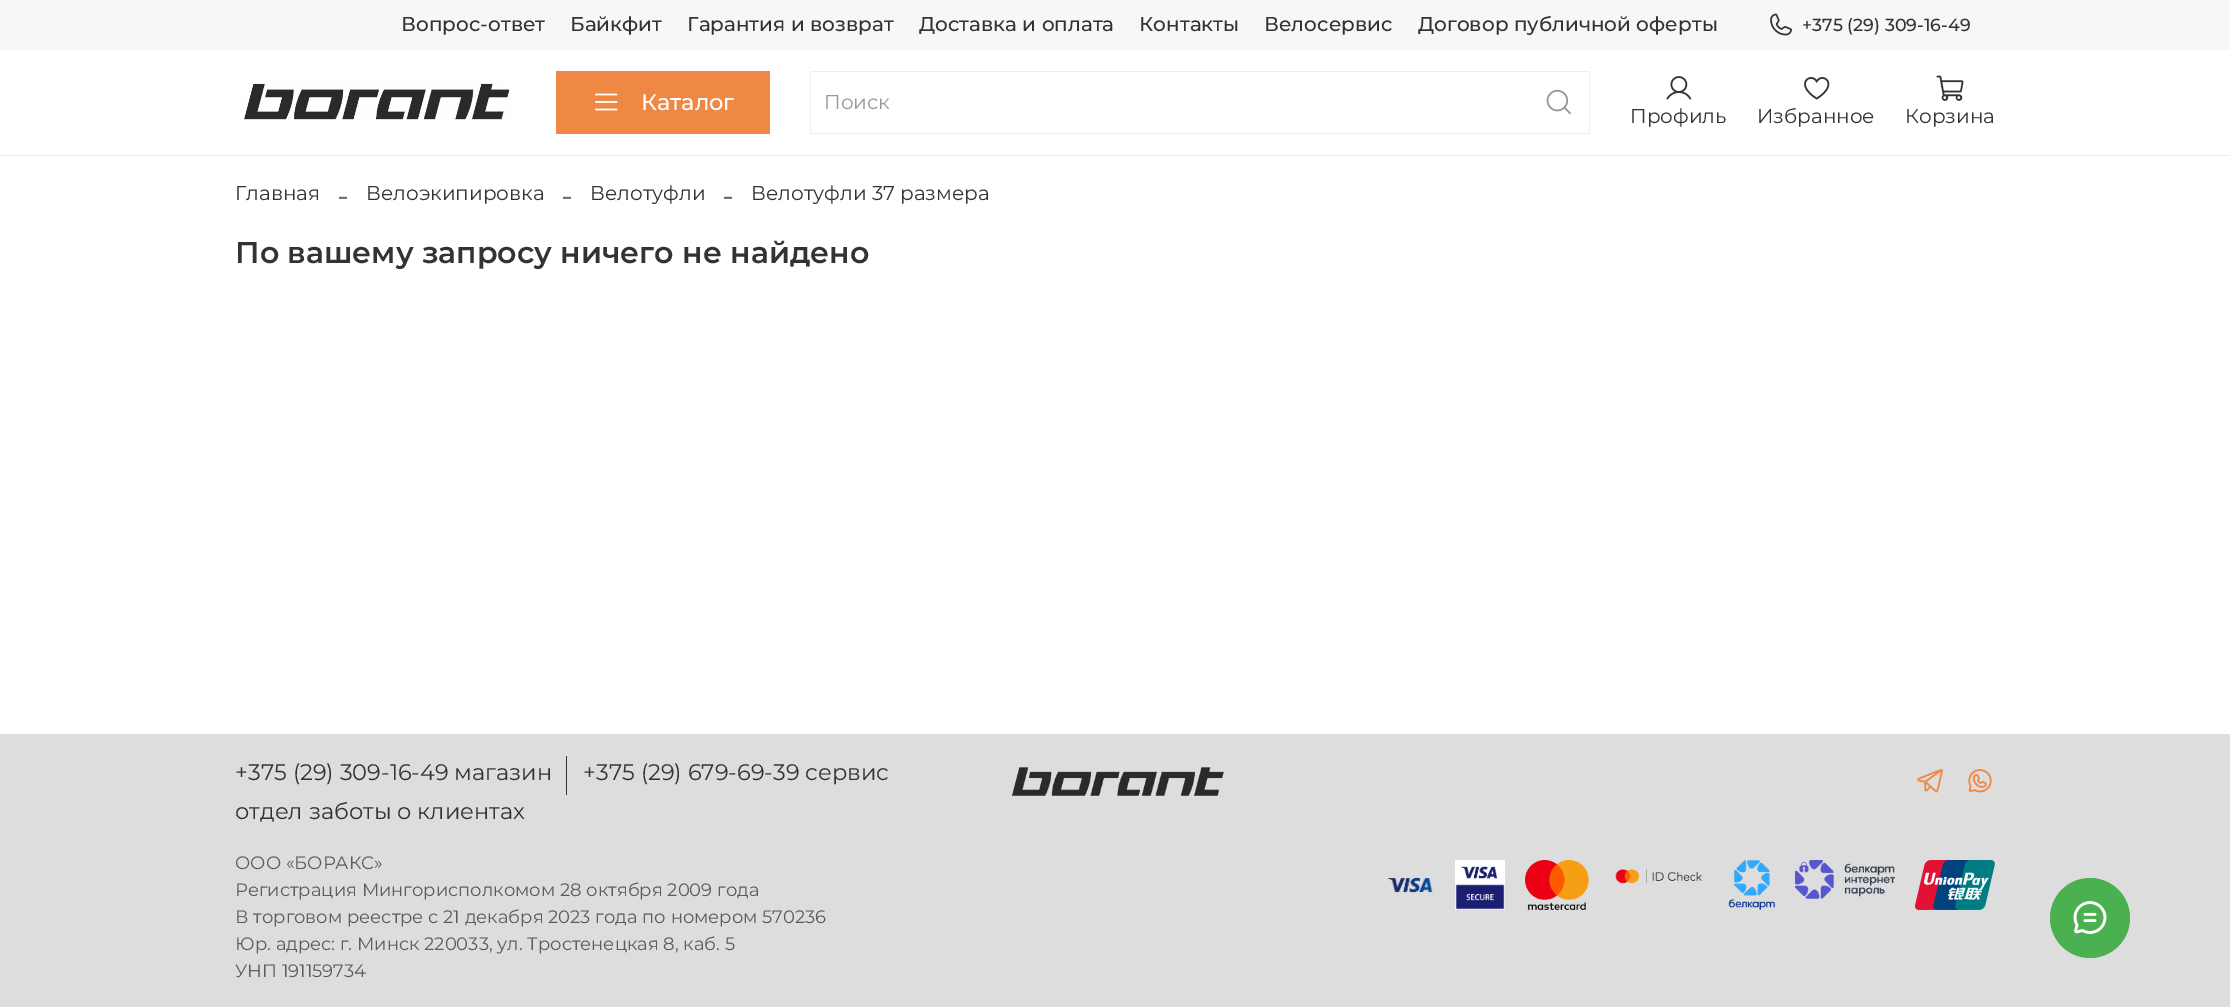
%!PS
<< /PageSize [2230 1007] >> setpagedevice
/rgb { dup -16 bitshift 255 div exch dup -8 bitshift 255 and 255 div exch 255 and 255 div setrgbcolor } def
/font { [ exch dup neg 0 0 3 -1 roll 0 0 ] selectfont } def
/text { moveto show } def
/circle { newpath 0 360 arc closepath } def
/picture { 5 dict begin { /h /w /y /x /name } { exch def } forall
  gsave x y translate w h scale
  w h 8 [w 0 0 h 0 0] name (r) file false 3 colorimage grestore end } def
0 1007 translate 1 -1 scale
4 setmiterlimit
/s1 { /Montserrat-Medium 20 font 16#333333 rgb } def
/s2 { /Montserrat-Medium 17.5 font 16#333333 rgb } def
/s3 { /Montserrat-Medium 22.5 font 16#FFFFFF rgb } def
/s4 { /Montserrat-Regular 20 font 16#999999 rgb } def
/s5 { /Montserrat-Regular 20 font 16#333333 rgb } def
/s6 { /LiberationSerif-Regular 30 font 16#707070 rgb } def
/s7 { /Montserrat-SemiBold 30 font 16#333333 rgb } def
/s8 { /Montserrat-Regular 22.5 font 16#333333 rgb } def
/s9 { /Montserrat-Regular 18 font 16#5C5C5C rgb } def
16#FFFFFF rgb
0 0 2230 1007 rectfill
16#F7F7F7 rgb
0 0 2230 50 rectfill
s1
(Вопрос-ответ) 401 31 text
(Байкфит) 570 31 text
(Гарантия и возврат) 687 31 text
(Доставка и оплата) 919 31 text
(Контакты) 1139 31 text
(Велосервис) 1264 31 text
(Договор публичной оферты) 1418 31 text
(pic1.raw) 1770 13 22 23 picture
s2
(+375 \(29\) 309-16-49) 1802 31 text
16#EDEDED rgb
0 155 2230 1 rectfill
(pic2.raw) 244 83 266 37 picture
16#EF8845 rgb
556 71 214 63 rectfill
(pic3.raw) 595 93 23 18 picture
s3
(Каталог) 641 110 text
16#EDEDED rgb
810 71 780 1 rectfill
810 133 718 1 rectfill
810 71 1 63 rectfill
s4
(Поиск) 824 109 text
16#EDEDED rgb
1589 71 1 63 rectfill
1528 133 62 1 rectfill
(pic4.raw) 1546 89 25 26 picture
(pic5.raw) 1666 76 26 24 picture
s5
(Профиль) 1630 123 text
(pic6.raw) 1804 77 26 23 picture
(Избранное) 1757 123 text
(pic7.raw) 1936 75 28 26 picture
(Корзина) 1905 123 text
(Главная) 235 200 text
s6
(-) 338 205 text
s5
(Велоэкипировка) 366 200 text
s6
(-) 562 205 text
s5
(Велотуфли) 590 200 text
s6
(-) 723 205 text
s5
(Велотуфли 37 размера) 751 200 text
s7
(По вашему запросу ничего не найдено) 235 263 text
16#DEDDDD rgb
0 734 2230 273 rectfill
s8
(+375 \(29\) 309-16-49 магазин) 235 780 text
566 756 1 39 rectfill
(+375 \(29\) 679-69-39 сервис) 583 780 text
(отдел заботы о клиентах) 235 819 text
(pic8.raw) 1011 767 213 29 picture
(pic9.raw) 1917 769 26 24 picture
(pic10.raw) 1968 769 24 24 picture
s9
(ООО «БОРАКС») 235 869 text
(Регистрация Мингорисполкомом 28 октября 2009 года) 235 896 text
(В торговом реестре с 21 декабря 2023 года по номером 570236) 235 923 text
(Юр. адрес: г. Минск 220033, ул. Тростенецкая 8, каб. 5) 235 950 text
(УНП 191159734) 235 977 text
(pic11.raw) 1387 877 46 16 picture
(pic12.raw) 1455 860 50 50 picture
(pic13.raw) 1525 860 64 50 picture
(pic14.raw) 1615 869 87 15 picture
(pic15.raw) 1728 860 47 50 picture
(pic16.raw) 1795 860 100 39 picture
(pic17.raw) 1915 860 80 50 picture
16#4BB04F rgb
2090 918 40 circle fill
(pic18.raw) 2073 901 34 33 picture
showpage
